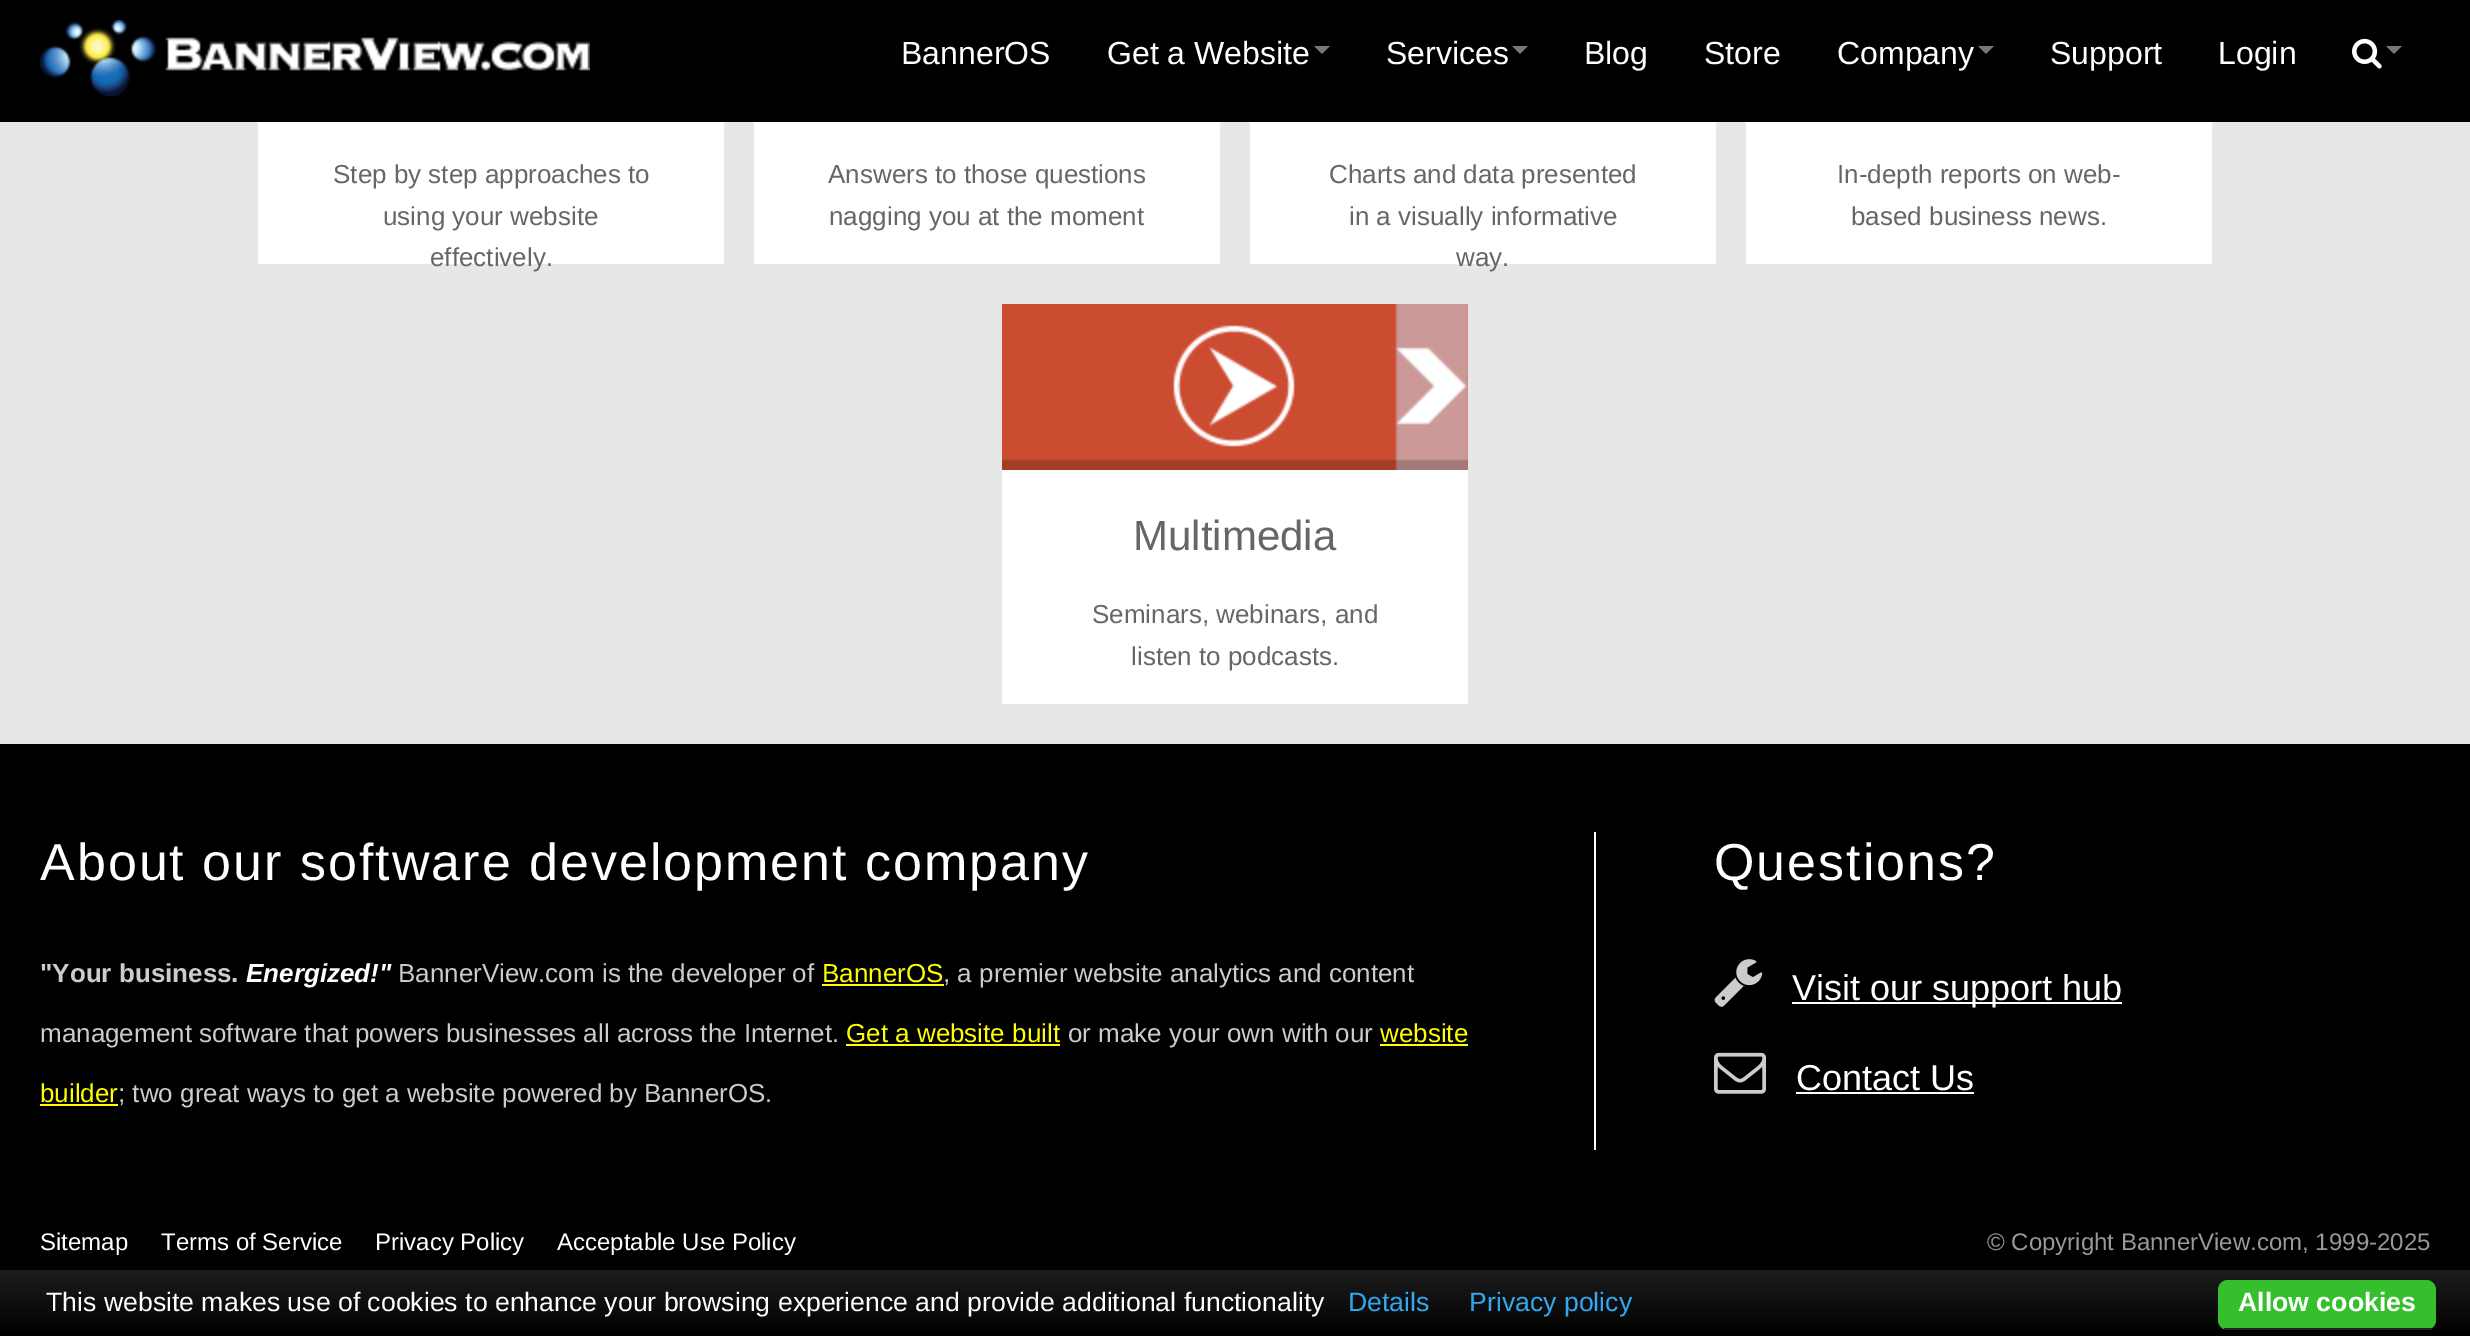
%!PS
<< /PageSize [2470 1336] >> setpagedevice
/rgb { dup -16 bitshift 255 div exch dup -8 bitshift 255 and 255 div exch 255 and 255 div setrgbcolor } def
/font { [ exch dup neg 0 0 3 -1 roll 0 0 ] selectfont } def
/text { moveto show } def
/roundrect { 5 dict begin { /r /h /w /y /x } { exch def } forall
  x r add y moveto x w add y 2 copy h add r arct x w add y h add x 1 index r arct
  x y h add x y r arct x y 2 copy exch w add exch r arct closepath end } def
/picture { 5 dict begin { /h /w /y /x /name } { exch def } forall
  gsave x y translate w h scale
  w h 8 [w 0 0 h 0 0] name (r) file false 3 colorimage grestore end } def
0 1336 translate 1 -1 scale
4 setmiterlimit
/s1 { /LiberationSans-Regular 32 font 16#FFFFFF rgb } def
/s2 { /LiberationSans-Regular 26 font 16#666666 rgb } def
/s3 { /LiberationSans-Regular 42 font 16#666666 rgb } def
/s4 { /LiberationSans-Bold 26 font 16#CCCCCC rgb } def
/s5 { /LiberationSans-BoldItalic 26 font 16#FFFFFF rgb } def
/s6 { /LiberationSans-Regular 26 font 16#CCCCCC rgb } def
/s7 { /LiberationSans-Regular 26 font 16#FFFF00 rgb } def
/s8 { /LiberationSans-Regular 36 font 16#FFFFFF rgb } def
/s9 { /LiberationSans-Regular 24 font 16#FFFFFF rgb } def
/s10 { /LiberationSans-Regular 24 font 16#999999 rgb } def
/s11 { /LiberationSans-Regular 26.65 font 16#FFFFFF rgb } def
/s12 { /LiberationSans-Regular 26.65 font 16#31A8F0 rgb } def
/s13 { /LiberationSans-Bold 26.65 font 16#FFFFFF rgb } def
16#000000 rgb
0 0 2470 1336 rectfill
(pic1.raw) 40 20 550 76 picture
s1
(BannerOS) 901 64 text
(Get a Website) 1107 64 text
16#777777 rgb
1314 46 moveto 1330 46 lineto 1322 54 lineto closepath fill
s1
(Services) 1386 64 text
16#777777 rgb
1512 46 moveto 1528 46 lineto 1520 54 lineto closepath fill
s1
(Blog) 1584 64 text
(Store) 1704 64 text
(Company) 1837 64 text
16#777777 rgb
1978 46 moveto 1994 46 lineto 1986 54 lineto closepath fill
s1
(Support) 2050 64 text
(Login) 2218 64 text
(pic2.raw) 2352 38 30 31 picture
16#777777 rgb
2386 46 moveto 2402 46 lineto 2394 54 lineto closepath fill
16#E7E7E7 rgb
0 122 2470 622 rectfill
16#FFFFFF rgb
258 122 466 142 rectfill
s2
(Step by step approaches to) 333 183 text
(using your website) 383 225 text
(effectively.) 430 266 text
16#FFFFFF rgb
754 122 466 142 rectfill
s2
(Answers to those questions) 828 183 text
(nagging you at the moment) 829 225 text
16#FFFFFF rgb
1250 122 466 142 rectfill
s2
(Charts and data presented) 1329 183 text
(in a visually informative) 1349 225 text
(way.) 1456 266 text
16#FFFFFF rgb
1746 122 466 142 rectfill
s2
(In-depth reports on web-) 1837 183 text
(based business news.) 1851 225 text
16#FFFFFF rgb
1002 470 466 234 rectfill
(pic3.raw) 1002 304 466 166 picture
s3
(Multimedia) 1133 550 text
s2
(Seminars, webinars, and) 1092 623 text
(listen to podcasts.) 1131 665 text
/LiberationSans-Regular 52 font
16#FFFFFF rgb
40 880 moveto 2 0 (About our software development company) ashow
s4
("Your business.) 40 982 text
s5
(Energized!") 246 982 text
s6
(BannerView.com is the developer of) 398 982 text
s7
(BannerOS) 822 982 text
822 984 122 2 rectfill
s6
(, a premier website analytics and content) 943 982 text
(management software that powers businesses all across the Internet.) 40 1042 text
s7
(Get a website built) 846 1042 text
846 1044 214 2 rectfill
s6
(or make your own with our) 1068 1042 text
s7
(website) 1380 1042 text
1380 1044 88 2 rectfill
(builder) 40 1102 text
40 1104 78 2 rectfill
s6
(; two great ways to get a website powered by BannerOS.) 118 1102 text
16#FFFFFF rgb
1594 832 2 318 rectfill
/LiberationSans-Regular 52 font
1714 880 moveto 2 0 (Questions?) ashow
(pic4.raw) 1714 959 49 48 picture
1792 1002 330 2 rectfill
s8
(Visit our support hub) 1792 1000 text
(pic5.raw) 1714 1052 52 42 picture
(Contact Us) 1796 1090 text
1796 1092 178 2 rectfill
s9
(Sitemap) 40 1250 text
(Terms of Service) 161 1250 text
(Privacy Policy) 375 1250 text
(Acceptable Use Policy) 557 1250 text
s10
(© Copyright BannerView.com, 1999-2025) 1987 1250 text
gsave 0 1270 moveto 2470 1270 lineto 2470 1330 lineto 0 1330 lineto closepath clip newpath
<< /ShadingType 2 /ColorSpace /DeviceRGB /Coords [1241 1270 1241 1336] /Extend [true true] /Function << /FunctionType 2 /Domain [0 1] /C0 [0.114 0.114 0.114] /C1 [0 0 0] /N 1 >> >> shfill grestore
s11
(This website makes use of cookies to enhance your browsing experience and provide additional functionality) 46 1311 text
s12
(Details) 1348 1311 text
(Privacy policy) 1469 1311 text
16#36BF2D rgb
2218 1280 218 50 10 roundrect fill
16#222222 rgb
2224 1328 208 2 rectfill
s13
(Allow cookies) 2238 1311 text
showpage
